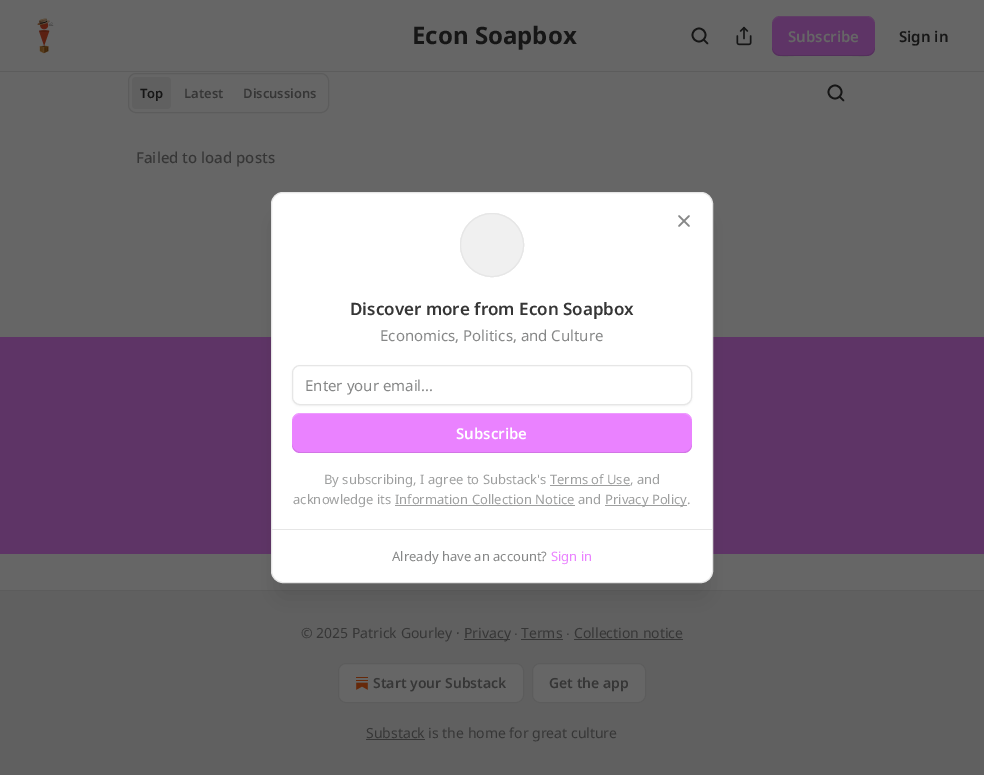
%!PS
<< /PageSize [984 775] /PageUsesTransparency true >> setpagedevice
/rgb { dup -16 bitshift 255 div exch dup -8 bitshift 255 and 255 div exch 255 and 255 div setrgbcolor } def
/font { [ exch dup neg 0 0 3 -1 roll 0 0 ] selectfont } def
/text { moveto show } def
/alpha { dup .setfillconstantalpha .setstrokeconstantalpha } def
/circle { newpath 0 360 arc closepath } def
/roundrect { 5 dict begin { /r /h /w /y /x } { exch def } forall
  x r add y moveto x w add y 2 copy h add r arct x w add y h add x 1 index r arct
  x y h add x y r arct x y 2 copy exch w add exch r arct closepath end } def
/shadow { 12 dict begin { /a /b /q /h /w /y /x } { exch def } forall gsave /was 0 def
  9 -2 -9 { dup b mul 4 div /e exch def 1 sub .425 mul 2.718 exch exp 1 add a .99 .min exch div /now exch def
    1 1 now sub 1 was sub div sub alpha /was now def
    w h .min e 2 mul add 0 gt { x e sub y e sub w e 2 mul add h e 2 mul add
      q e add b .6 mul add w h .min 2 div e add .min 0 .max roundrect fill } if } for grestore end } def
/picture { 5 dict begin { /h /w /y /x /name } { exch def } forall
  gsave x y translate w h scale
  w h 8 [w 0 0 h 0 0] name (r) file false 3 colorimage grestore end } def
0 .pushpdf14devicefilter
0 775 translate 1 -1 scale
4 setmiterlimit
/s1 { /NotoSans-Bold 24 font 16#161616 rgb } def
/s2 { /NotoSans-SemiBold 15 font 16#666666 rgb } def
/s3 { /NotoSans-SemiBold 15 font 16#161616 rgb } def
/s4 { /NotoSans-SemiBold 13 font 16#161616 rgb } def
/s5 { /NotoSans-SemiBold 13 font 16#363636 rgb } def
/s6 { /NotoSans-Medium 15 font 16#363636 rgb } def
/s7 { /NotoSans-SemiBold 17 font 16#363636 rgb } def
/s8 { /NotoSans-Regular 15 font 16#868787 rgb } def
/s9 { /NotoSans-SemiBold 15 font 16#FFFFFF rgb } def
/s10 { /NotoSans-Regular 13 font 16#9E9F9F rgb } def
/s11 { /NotoSans-Regular 13 font 16#868787 rgb } def
/s12 { /NotoSans-Regular 13 font 16#EA82FF rgb } def
/s13 { /NotoSans-Regular 14 font 16#363636 rgb } def
/s14 { /LiberationSans-Regular 14 font 16#363636 rgb } def
/s15 { /NotoSans-SemiBold 14 font 16#363636 rgb } def
16#666666 rgb
0 0 984 775 rectfill
16#5C5C5C rgb
0 71 984 1 rectfill
(pic1.raw) 37 18 17 36 picture
s1
(Econ Soapbox) 412 44 text
1.7 setlinewidth
699 35 6.5 circle stroke
1 setlinecap
1 setlinejoin
707.5 43.5 moveto 704 40 lineto stroke
(pic2.raw) 736 26 16 20 picture
16#5E3466 rgb
772 16 103 40 8 roundrect fill
0.1 alpha
16#000000 rgb
772 47 moveto 772 59 786 56 794 56 curveto 852 56 lineto 861 56 875 59 875 47 curveto 875 51 871 55 867 55 curveto 780 55 lineto 776 55 772 51 772 47 curveto closepath fill
0.2 alpha
16#666666 rgb
780 17 moveto 867 17 lineto 871 17 875 21 875 25 curveto 875 13 861 16 852 16 curveto 794 16 lineto 786 16 772 13 772 25 curveto 772 21 776 17 780 17 curveto closepath fill
1 alpha
s2
(Subscribe) 788 42 text
s3
(Sign in) 899 42 text
16#5C5C5C rgb
1 setlinewidth
0 setlinecap
0 setlinejoin
128.5 73.5 200 39 7.5 roundrect stroke
16#606060 rgb
132 77 39 32 4 roundrect fill
s4
(Top) 140 98 text
s5
(Latest) 184 98 text
(Discussions) 243 98 text
16#161616 rgb
1.7 setlinewidth
835 92 6.5 circle stroke
1 setlinecap
1 setlinejoin
843.5 100.5 moveto 840 97 lineto stroke
s6
(Failed to load posts) 136 163 text
16#5E3466 rgb
0 337 984 217 rectfill
16#606060 rgb
0 591 984 184 rectfill
16#5C5C5C rgb
0 590 984 1 rectfill
16#000000 rgb
276 217 432 381 7 12.5 0.1 shadow
16#FFFFFF rgb
271.5 192.5 441 390 11.5 roundrect gsave fill grestore
16#E6E6E6 rgb
1 setlinewidth
0 setlinecap
0 setlinejoin
stroke
492 245 31.5 circle stroke
16#F0F0F0 rgb
492 245 31.5 circle gsave fill grestore
16#E6E6E6 rgb
stroke
16#868787 rgb
1.7 setlinewidth
1 setlinecap
1 setlinejoin
689 216 moveto 679 226 lineto 679 216 moveto 689 226 lineto stroke
s7
(Discover more from Econ Soapbox) 350 315 text
s8
(Economics, Politics, and Culture) 380 341 text
16#000000 rgb
292 366 400 40 8 1 0.05 shadow
16#FFFFFF rgb
292.5 365.5 399 39 7.5 roundrect gsave fill grestore
16#E6E6E6 rgb
1 setlinewidth
0 setlinecap
0 setlinejoin
stroke
s8
(Enter your email...) 305 391 text
16#EA82FF rgb
292 413 400 40 8 roundrect fill
0.1 alpha
16#000000 rgb
292 444 moveto 292 445 lineto 292 449 296 453 300 453 curveto 684 453 lineto 688 453 692 449 692 445 curveto 692 444 lineto 692 448 688 452 684 452 curveto 300 452 lineto 296 452 292 448 292 444 curveto closepath fill
0.2 alpha
16#FFFFFF rgb
300 414 moveto 684 414 lineto 688 414 692 418 692 422 curveto 692 421 lineto 692 417 688 413 684 413 curveto 300 413 lineto 296 413 292 417 292 421 curveto 292 422 lineto 292 418 296 414 300 414 curveto closepath fill
1 alpha
s9
(Subscribe) 456 439 text
s10
(By subscribing, I agree to Substack's Terms of Use, and) 324 484 text
550 485 80 1 rectfill
(acknowledge its Information Collection Notice and) 293 504 text
605 505 82 1 rectfill
(Privacy Policy.) 605 504 text
395 505 180 1 rectfill
16#E6E6E6 rgb
272 529 440 1 rectfill
s11
(Already have an account?) 392 561 text
s12
(Sign in) 551 561 text
s13
(© 2025 Patrick Gourley ·) 301 638 text
464 639 46 1 rectfill
(Privacy) 464 638 text
s14
(∙) 514 638 text
s13
(Terms) 521 638 text
521 639 42 1 rectfill
s14
(∙) 566 638 text
s13
(Collection notice) 574 638 text
574 639 109 1 rectfill
16#666666 rgb
338.5 663.5 185 39 7.5 roundrect gsave fill grestore
16#5C5C5C rgb
stroke
(pic3.raw) 356 677 12 13 picture
s15
(Start your Substack) 373 688 text
16#666666 rgb
532.5 663.5 113 39 7.5 roundrect gsave fill grestore
16#5C5C5C rgb
stroke
s15
(Get the app) 549 688 text
366 739 59 1 rectfill
s13
(Substack is the home for great culture) 366 738 text
.poppdf14devicefilter showpage
